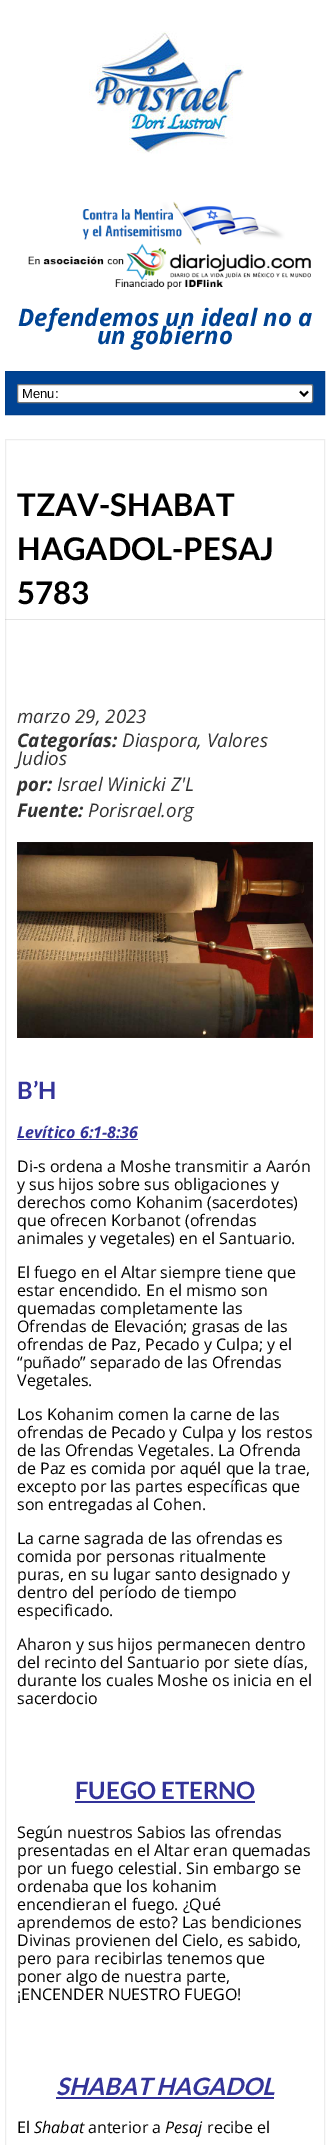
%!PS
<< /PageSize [330 2145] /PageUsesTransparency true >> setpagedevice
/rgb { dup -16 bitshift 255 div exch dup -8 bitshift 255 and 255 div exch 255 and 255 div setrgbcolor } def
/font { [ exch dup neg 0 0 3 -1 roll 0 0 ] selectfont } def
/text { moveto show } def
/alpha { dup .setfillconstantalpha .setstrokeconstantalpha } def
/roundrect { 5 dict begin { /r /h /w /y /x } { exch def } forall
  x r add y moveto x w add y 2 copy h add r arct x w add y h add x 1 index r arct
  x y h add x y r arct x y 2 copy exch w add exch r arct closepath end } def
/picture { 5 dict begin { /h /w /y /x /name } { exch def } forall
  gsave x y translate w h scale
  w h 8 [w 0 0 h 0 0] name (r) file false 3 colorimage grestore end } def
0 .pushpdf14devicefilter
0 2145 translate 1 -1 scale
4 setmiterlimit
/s1 { /OpenSans-BoldItalic 24 font 16#004393 rgb } def
/s2 { /LiberationSans-Regular 13 font 16#000000 rgb } def
/s3 { /Lato-Bold 31.25 font 16#000000 rgb } def
/s4 { /OpenSans-Italic 18.75 font 16#333333 rgb } def
/s5 { /OpenSans-BoldItalic 18.75 font 16#333333 rgb } def
/s6 { /Lato-Bold 24 font 16#333399 rgb } def
/s7 { /OpenSans-BoldItalic 16 font 16#333399 rgb } def
/s8 { /OpenSans-Regular 16 font 16#000000 rgb } def
/s9 { /Lato-BoldItalic 24 font 16#333399 rgb } def
/s10 { /OpenSans-Italic 16 font 16#000000 rgb } def
16#FFFFFF rgb
0 0 330 2145 rectfill
(pic1.raw) 89 31 155 123 picture
(pic2.raw) 28 201 283 89 picture
s1
(Defendemos un ideal no a) 18 326 text
(un gobierno) 97 344 text
5.5 371.5 moveto 324.5 371.5 lineto 324.5 414.5 lineto 5.5 414.5 lineto closepath gsave fill grestore
16#003E89 rgb
stroke
16#FFFFFF rgb
17.5 384.5 295 18 1.5 roundrect gsave fill grestore
16#767676 rgb
stroke
16#000000 rgb
2 setlinewidth
300 391.5 moveto 304 395.5 lineto 308 391.5 lineto stroke
s2
(Menu:) 22 398 text
16#EDEDED rgb
1 setlinewidth
5.5 439.5 319 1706 rectstroke
s3
(TZAV-SHABAT) 17 516 text
(HAGADOL-PESAJ) 17 560 text
(5783) 17 604 text
0.1 alpha
5 619 320 1 rectfill
1 alpha
s4
(marzo 29, 2023) 17 723 text
s5
(Categorías:) 17 747 text
s4
(Diaspora, Valores) 122 747 text
(Judios) 17 765 text
s5
(por:) 17 791 text
s4
(Israel Winicki Z'L) 57 791 text
s5
(Fuente:) 17 817 text
s4
(Porisrael.org) 88 817 text
(pic3.raw) 17 842 296 196 picture
s6
(B’H) 17 1099 text
s7
(Levítico 6:1-8:36) 17 1138 text
17 1139 121 1 rectfill
s8
(Di-s ordena a Moshe transmitir a Aarón) 17 1172 text
(y sus hijos sobre sus obligaciones y) 17 1190 text
(derechos como Kohanim \(sacerdotes\)) 17 1208 text
(que ofrecen Korbanot \(ofrendas) 17 1226 text
(animales y vegetales\) en el Santuario.) 17 1244 text
(El fuego en el Altar siempre tiene que) 17 1278 text
(estar encendido. En el mismo son) 17 1296 text
(quemadas completamente las) 17 1314 text
(Ofrendas de Elevación; grasas de las) 17 1332 text
(ofrendas de Paz, Pecado y Culpa; y el) 17 1350 text
(“puñado” separado de las Ofrendas) 17 1368 text
(Vegetales.) 17 1386 text
(Los Kohanim comen la carne de las) 17 1420 text
(ofrendas de Pecado y Culpa y los restos) 17 1438 text
(de las Ofrendas Vegetales. La Ofrenda) 17 1456 text
(de Paz es comida por aquél que la trae,) 17 1474 text
(excepto por las partes específicas que) 17 1492 text
(son entregadas al Cohen.) 17 1510 text
(La carne sagrada de las ofrendas es) 17 1544 text
(comida por personas ritualmente) 17 1562 text
(puras, en su lugar santo designado y) 17 1580 text
(dentro del período de tiempo) 17 1598 text
(especificado.) 17 1616 text
(Aharon y sus hijos permanecen dentro) 17 1650 text
(del recinto del Santuario por siete días,) 17 1668 text
(durante los cuales Moshe os inicia en el) 17 1686 text
(sacerdocio) 17 1704 text
s6
(FUEGO ETERNO) 75 1799 text
75 1801 180 2 rectfill
s8
(Según nuestros Sabios las ofrendas) 17 1838 text
(presentadas en el Altar eran quemadas) 17 1856 text
(por un fuego celestial. Sin embargo se) 17 1874 text
(ordenaba que los kohanim) 17 1892 text
(encendieran el fuego. ¿Qué) 17 1910 text
(aprendemos de esto? Las bendiciones) 17 1928 text
(Divinas provienen del Cielo, es sabido,) 17 1946 text
(pero para recibirlas tenemos que) 17 1964 text
(poner algo de nuestra parte,) 17 1982 text
(¡ENCENDER NUESTRO FUEGO!) 17 2000 text
s9
(SHABAT HAGADOL) 56 2095 text
56 2097 218 2 rectfill
s8
(El) 17 2133 text
s10
(Shabat) 34 2133 text
s8
(anterior a) 88 2133 text
s10
(Pesaj) 165 2133 text
s8
(recibe el) 207 2133 text
.poppdf14devicefilter showpage
